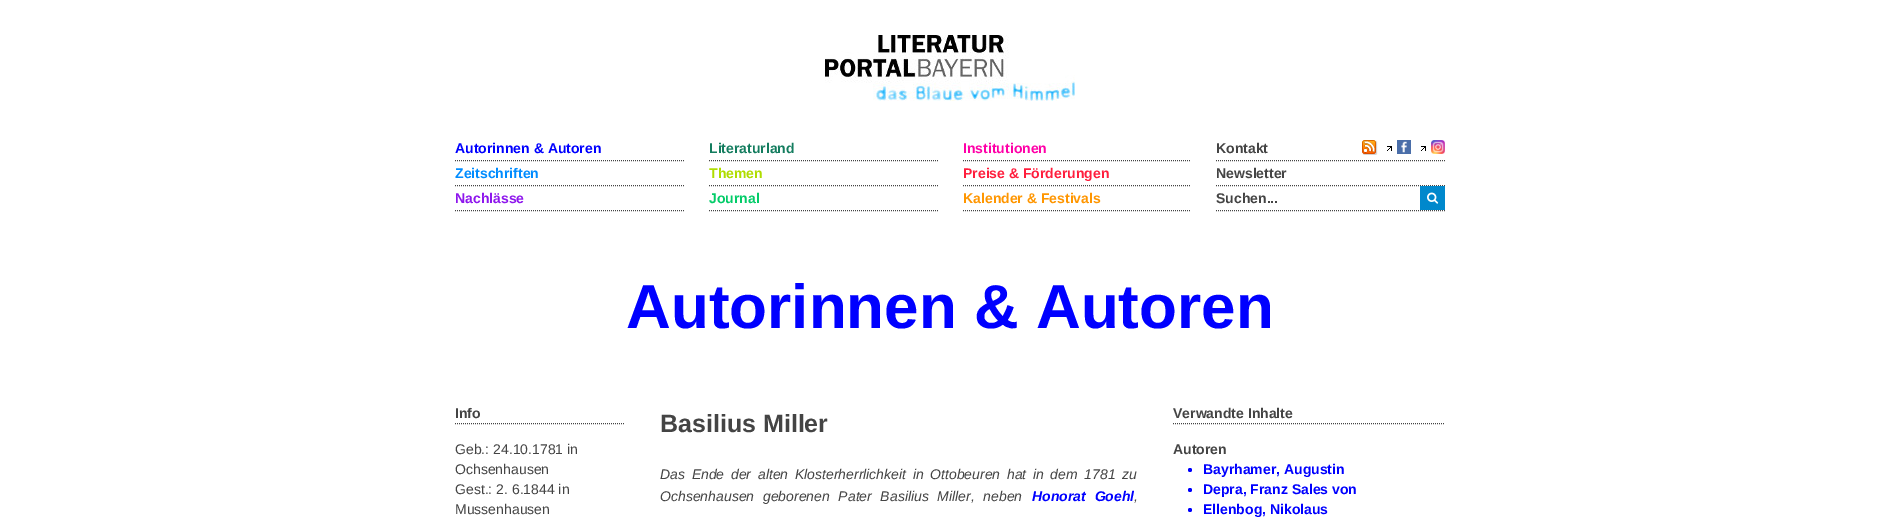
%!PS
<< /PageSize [1900 518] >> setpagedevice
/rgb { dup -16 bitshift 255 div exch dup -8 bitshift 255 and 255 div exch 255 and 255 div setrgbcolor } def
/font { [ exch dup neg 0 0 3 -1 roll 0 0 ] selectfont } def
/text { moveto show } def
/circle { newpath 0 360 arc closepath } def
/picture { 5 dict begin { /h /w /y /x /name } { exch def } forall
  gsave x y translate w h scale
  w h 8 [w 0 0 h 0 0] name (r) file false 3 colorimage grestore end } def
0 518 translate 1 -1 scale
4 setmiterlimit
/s1 { /LiberationSans-Bold 14 font 16#0000FF rgb } def
/s2 { /LiberationSans-Bold 14 font 16#008CFF rgb } def
/s3 { /LiberationSans-Bold 14 font 16#8E16ED rgb } def
/s4 { /LiberationSans-Bold 14 font 16#147D5F rgb } def
/s5 { /LiberationSans-Bold 14 font 16#AFDD00 rgb } def
/s6 { /LiberationSans-Bold 14 font 16#02CC68 rgb } def
/s7 { /LiberationSans-Bold 14 font 16#FF00A8 rgb } def
/s8 { /LiberationSans-Bold 14 font 16#FF1E3D rgb } def
/s9 { /LiberationSans-Bold 14 font 16#FF9600 rgb } def
/s10 { /LiberationSans-Bold 14 font 16#444444 rgb } def
/s11 { /LiberationSans-Bold 62 font 16#0000FF rgb } def
/s12 { /LiberationSans-Regular 14 font 16#444444 rgb } def
/s13 { /LiberationSans-Bold 25 font 16#444444 rgb } def
/s14 { /LiberationSans-Italic 14 font 16#444444 rgb } def
16#FFFFFF rgb
0 0 1900 518 rectfill
(pic1.raw) 825 35 250 66 picture
16#444444 rgb
[1 1] 0 setdash
455 160.5 moveto 684 160.5 lineto stroke
s1
(Autorinnen & Autoren) 455 153 text
16#444444 rgb
455 185.5 moveto 684 185.5 lineto stroke
s2
(Zeitschriften) 455 178 text
16#444444 rgb
455 210.5 moveto 684 210.5 lineto stroke
s3
(Nachlässe) 455 203 text
16#444444 rgb
709 160.5 moveto 938 160.5 lineto stroke
s4
(Literaturland) 709 153 text
16#444444 rgb
709 185.5 moveto 938 185.5 lineto stroke
s5
(Themen) 709 178 text
16#444444 rgb
709 210.5 moveto 938 210.5 lineto stroke
s6
(Journal) 709 203 text
16#444444 rgb
963 160.5 moveto 1191 160.5 lineto stroke
s7
(Institutionen) 963 153 text
16#444444 rgb
963 185.5 moveto 1191 185.5 lineto stroke
s8
(Preise & Förderungen) 963 178 text
16#444444 rgb
963 210.5 moveto 1191 210.5 lineto stroke
s9
(Kalender & Festivals) 963 203 text
16#444444 rgb
1216 160.5 moveto 1445 160.5 lineto stroke
(Kontakt) 1216 153 text
(pic2.raw) 1362 140 16 15 picture
(pic3.raw) 1387 146 5 5 picture
(pic4.raw) 1397 140 14 14 picture
(pic3.raw) 1421 146 5 5 picture
(pic5.raw) 1431 140 14 14 picture
1216 185.5 moveto 1445 185.5 lineto stroke
(Newsletter) 1216 178 text
1216 210.5 moveto 1445 210.5 lineto stroke
(Suchen...) 1216 203 text
16#0088CC rgb
1420 186 25 24 rectfill
(pic6.raw) 1427 192 12 12 picture
s11
(Autorinnen & Autoren) 626 328 text
16#444444 rgb
455 423.5 moveto 625 423.5 lineto stroke
s10
(Info) 455 418 text
s12
(Geb.: 24.10.1781 in) 455 454 text
(Ochsenhausen) 455 474 text
(Gest.: 2. 6.1844 in) 455 494 text
(Mussenhausen) 455 514 text
s13
(Basilius Miller) 660 432 text
/LiberationSans-Italic 14 font
660 479 moveto 2.75 0 32 (Das Ende der alten Klosterherrlichkeit in Ottobeuren hat in dem 1781 zu) widthshow
660 501 moveto 4.75 0 32 (Ochsenhausen geborenen Pater Basilius Miller, neben) widthshow
/LiberationSans-BoldItalic 14 font
16#0000FF rgb
1032 501 moveto 5 0 32 (Honorat Goehl) widthshow
s14
(,) 1134 501 text
1173 423.5 moveto 1445 423.5 lineto stroke
s10
(Verwandte Inhalte) 1173 418 text
(Autoren) 1173 454 text
16#0000FF rgb
1190 470 2 circle fill
(Bayrhamer, Augustin) 1203 474 text
1190 490 2 circle fill
(Depra, Franz Sales von) 1203 494 text
1190 510 2 circle fill
(Ellenbog, Nikolaus) 1203 514 text
showpage
